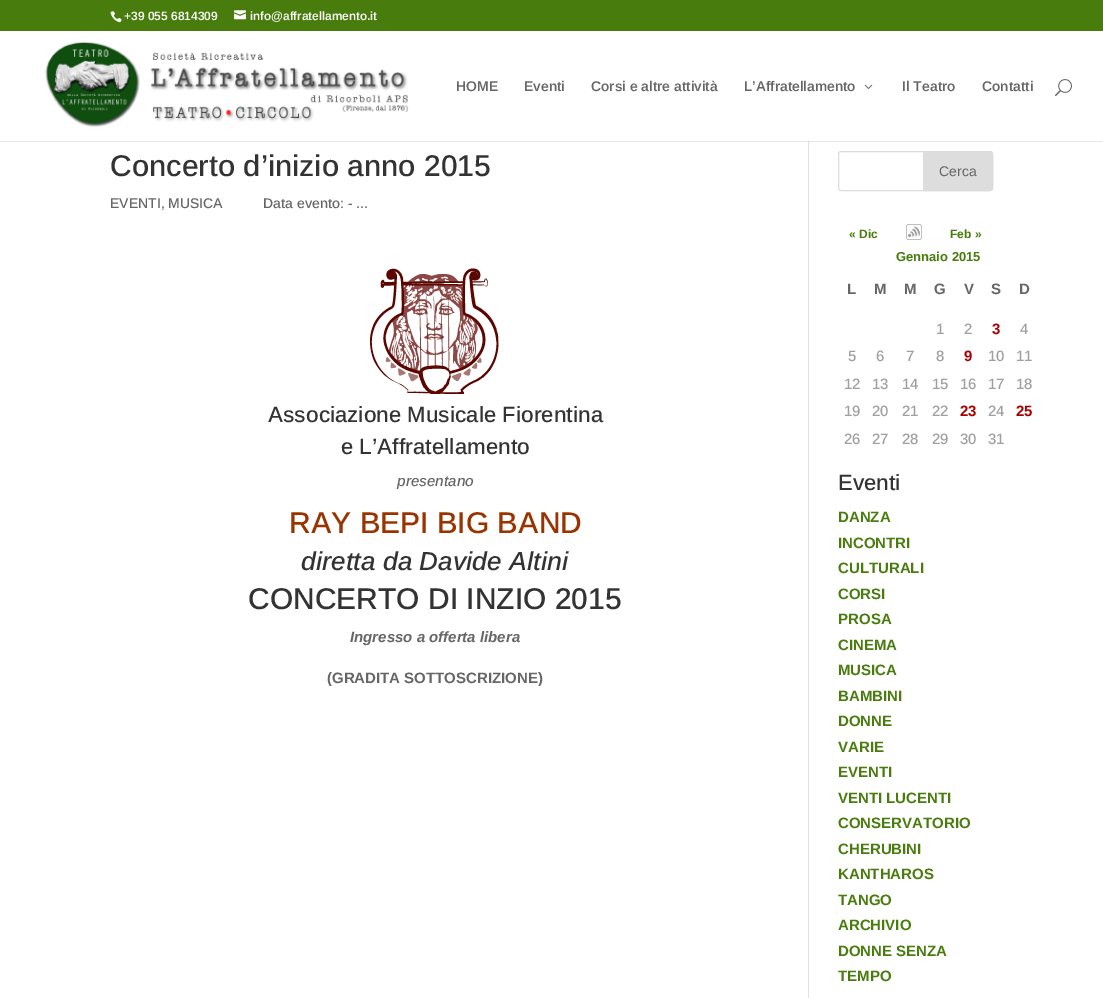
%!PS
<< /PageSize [1103 998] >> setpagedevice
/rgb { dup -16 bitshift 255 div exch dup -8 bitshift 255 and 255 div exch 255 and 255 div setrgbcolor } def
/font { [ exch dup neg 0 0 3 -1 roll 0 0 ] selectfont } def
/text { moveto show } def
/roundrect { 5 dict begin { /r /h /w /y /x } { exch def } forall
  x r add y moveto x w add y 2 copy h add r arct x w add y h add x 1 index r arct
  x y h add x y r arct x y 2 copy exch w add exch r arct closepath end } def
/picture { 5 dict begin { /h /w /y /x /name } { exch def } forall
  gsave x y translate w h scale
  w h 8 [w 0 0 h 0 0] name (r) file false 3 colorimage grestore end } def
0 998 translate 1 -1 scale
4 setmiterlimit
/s1 { /Arimo-SemiBold 12 font 16#FFFFFF rgb } def
/s2 { /Arimo-SemiBold 14 font 16#666666 rgb } def
/s3 { /Arimo-Medium 30 font 16#333333 rgb } def
/s4 { /Arimo-Medium 14 font 16#666666 rgb } def
/s5 { /Arimo-Medium 22 font 16#333333 rgb } def
/s6 { /Arimo-MediumItalic 15 font 16#666666 rgb } def
/s7 { /Arimo-Medium 30 font 16#993300 rgb } def
/s8 { /Arimo-MediumItalic 26 font 16#333333 rgb } def
/s9 { /Arimo-BoldItalic 15 font 16#666666 rgb } def
/s10 { /Arimo-Bold 15 font 16#666666 rgb } def
/s11 { /Arimo-Regular 14 font 16#666666 rgb } def
/s12 { /Arimo-Bold 12 font 16#487C0D rgb } def
/s13 { /LiberationSans-Bold 13 font 16#487C0D rgb } def
/s14 { /Arimo-Medium 15 font 16#9F9F9F rgb } def
/s15 { /Arimo-Bold 15 font 16#AA0000 rgb } def
/s16 { /Arimo-Bold 15 font 16#487C0D rgb } def
16#FFFFFF rgb
0 0 1103 998 rectfill
16#E6E6E6 rgb
0 141 1103 1 rectfill
16#487C0D rgb
0 0 1103 31 rectfill
(pic1.raw) 110 11 12 12 picture
s1
(+39 055 6814309) 124 20 text
(pic2.raw) 234 10 12 10 picture
(info@affratellamento.it) 250 20 text
(pic3.raw) 45 41 364 86 picture
s2
(HOME) 456 91 text
(Eventi) 524 91 text
(Corsi e altre attività) 591 91 text
(L’Affratellamento) 744 91 text
(pic4.raw) 864 84 9 5 picture
(Il Teatro) 902 91 text
(Contatti) 982 91 text
(pic5.raw) 1055 79 17 18 picture
16#E2E2E2 rgb
808 142 1 856 rectfill
16#CBCBCB rgb
808 141 1 1 rectfill
s3
(Concerto d’inizio anno 2015) 110 176 text
s4
(EVENTI, MUSICA) 110 208 text
(Data evento: - ...) 263 208 text
(pic6.raw) 370 268 129 126 picture
s5
(Associazione Musicale Fiorentina) 268 422 text
(e L’Affratellamento) 341 454 text
s6
(presentano) 397 486 text
s7
(RAY BEPI BIG BAND) 289 533 text
s8
(diretta da Davide Altini) 301 570 text
s3
(CONCERTO DI INZIO 2015) 248 609 text
s9
(Ingresso a offerta libera) 350 642 text
s10
(\(GRADITA SOTTOSCRIZIONE\)) 327 683 text
16#DDDDDD rgb
838.5 151.5 154 39 2.5 roundrect stroke
923.5 151.5 moveto 990 151.5 lineto 991.5 151.5 992.5 152.5 992.5 154 curveto 992.5 188 lineto 992.5 189.5 991.5 190.5 990 190.5 curveto 923.5 190.5 lineto closepath gsave fill grestore
stroke
s11
(Cerca) 939 176 text
s12
(« Dic) 849 238 text
(pic7.raw) 906 224 16 16 picture
(Feb ») 950 238 text
s13
(Gennaio 2015) 896 261 text
s10
(L) 847 294 text
(M) 874 294 text
(M) 904 294 text
(G) 934 294 text
(V) 964 294 text
(S) 991 294 text
(D) 1019 294 text
s14
(1) 936 334 text
(2) 964 334 text
s15
(3) 992 334 text
s14
(4) 1020 334 text
(5) 848 361 text
(6) 876 361 text
(7) 906 361 text
(8) 936 361 text
s15
(9) 964 361 text
s14
(10) 988 361 text
(11) 1016 361 text
(12) 844 389 text
(13) 872 389 text
(14) 902 389 text
(15) 932 389 text
(16) 960 389 text
(17) 988 389 text
(18) 1016 389 text
(19) 844 416 text
(20) 872 416 text
(21) 902 416 text
(22) 932 416 text
s15
(23) 960 416 text
s14
(24) 988 416 text
s15
(25) 1016 416 text
s14
(26) 844 444 text
(27) 872 444 text
(28) 902 444 text
(29) 932 444 text
(30) 960 444 text
(31) 988 444 text
s5
(Eventi) 838 490 text
s16
(DANZA) 838 522 text
(INCONTRI) 838 548 text
(CULTURALI) 838 573 text
(CORSI) 838 599 text
(PROSA) 838 624 text
(CINEMA) 838 650 text
(MUSICA) 838 675 text
(BAMBINI) 838 701 text
(DONNE) 838 726 text
(VARIE) 838 752 text
(EVENTI) 838 777 text
(VENTI LUCENTI) 838 803 text
(CONSERVATORIO) 838 828 text
(CHERUBINI) 838 854 text
(KANTHAROS) 838 879 text
(TANGO) 838 905 text
(ARCHIVIO) 838 930 text
(DONNE SENZA) 838 956 text
(TEMPO) 838 981 text
showpage
